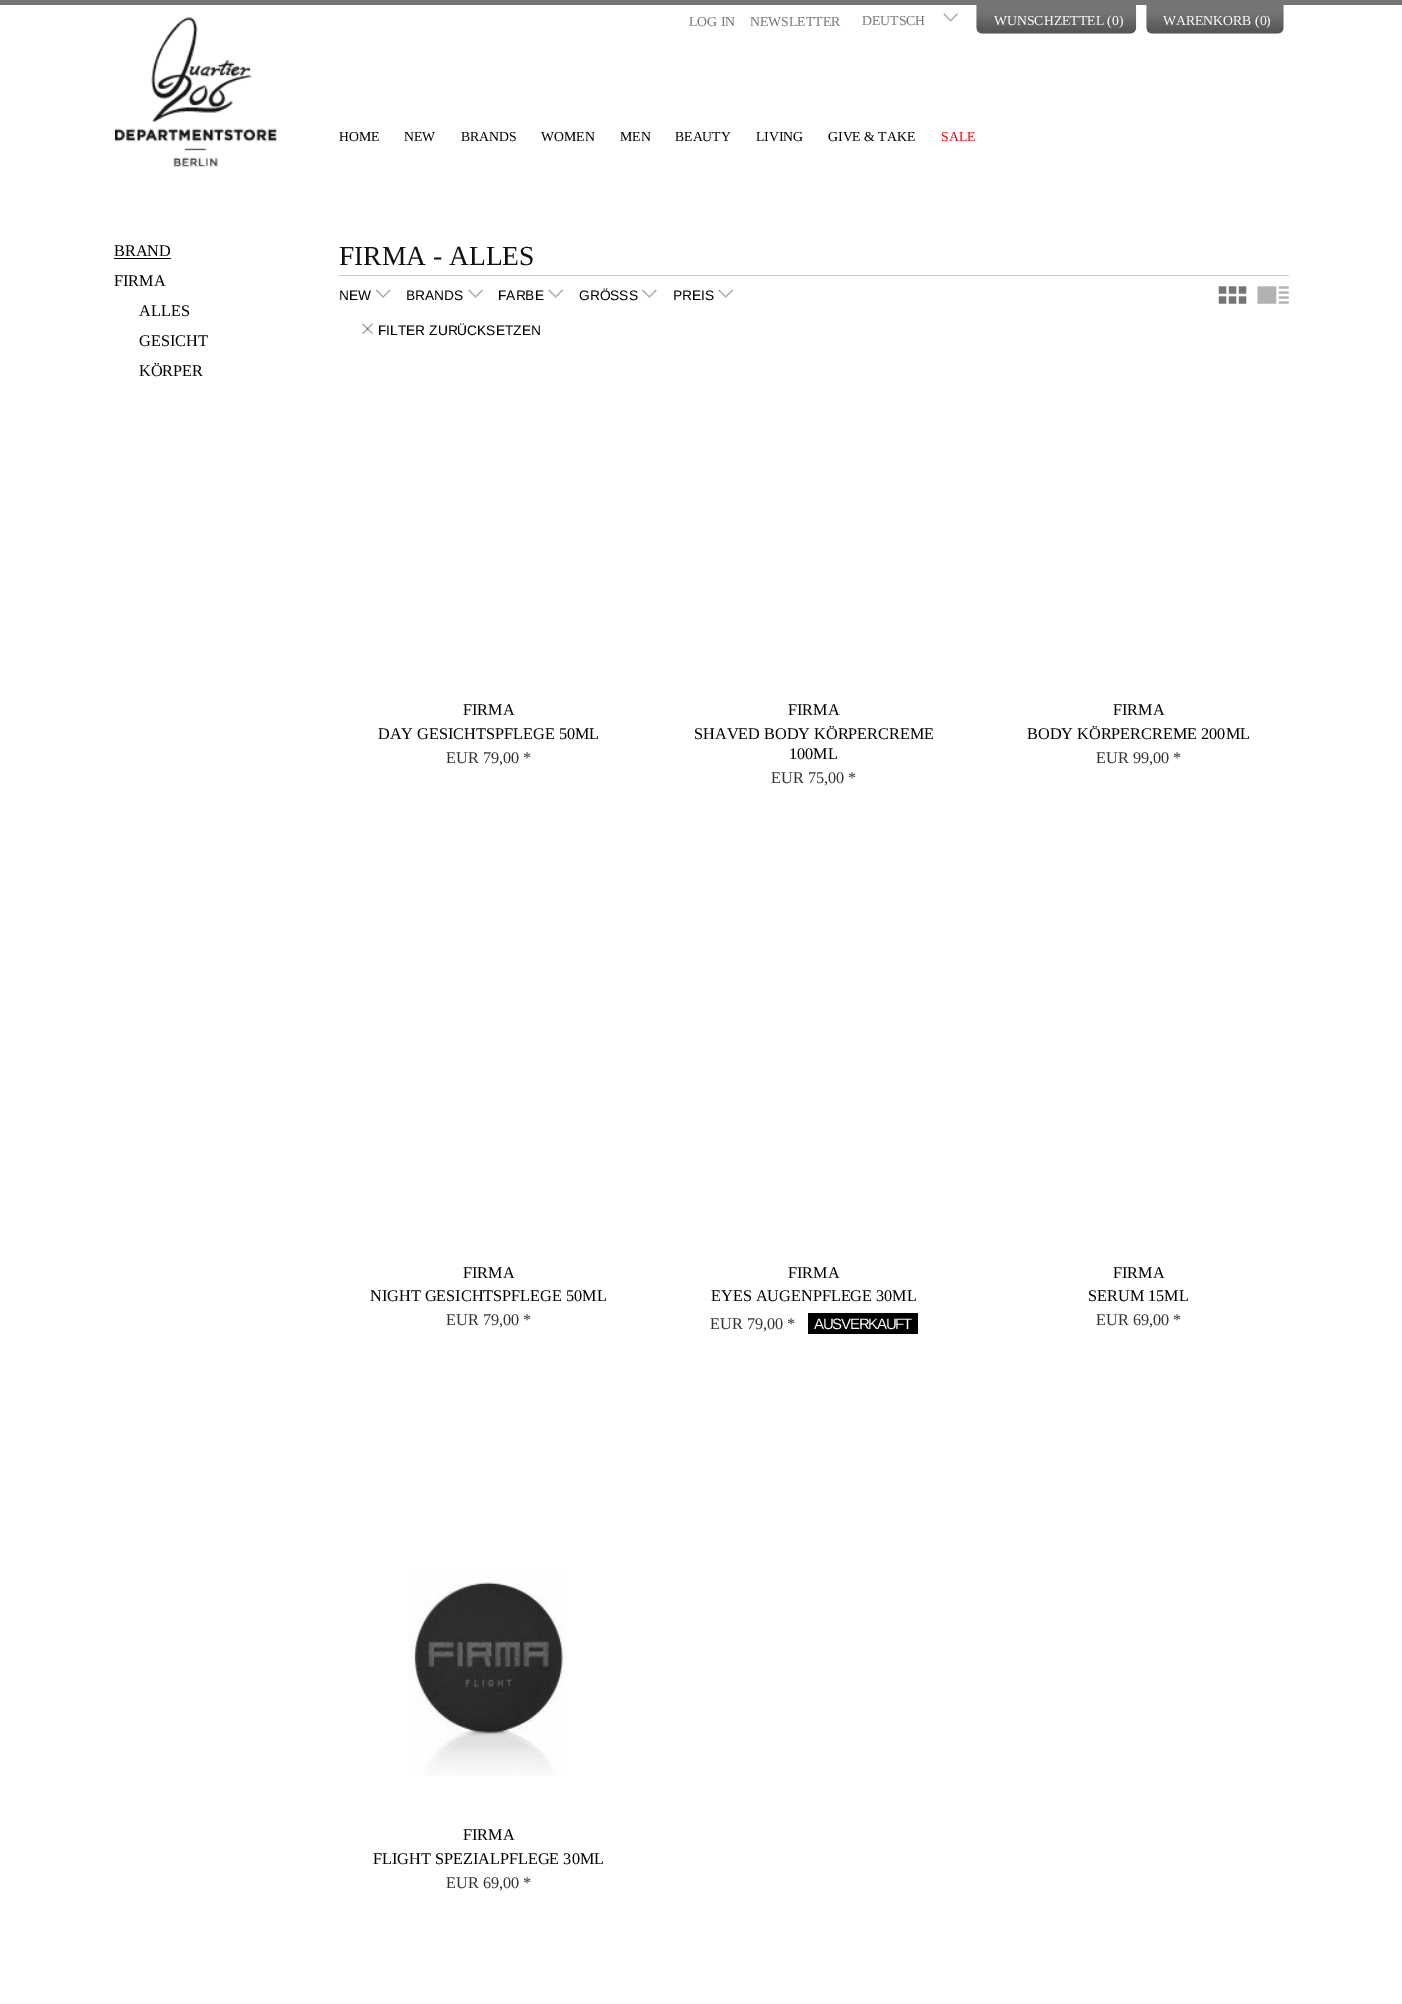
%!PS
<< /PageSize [1402 2004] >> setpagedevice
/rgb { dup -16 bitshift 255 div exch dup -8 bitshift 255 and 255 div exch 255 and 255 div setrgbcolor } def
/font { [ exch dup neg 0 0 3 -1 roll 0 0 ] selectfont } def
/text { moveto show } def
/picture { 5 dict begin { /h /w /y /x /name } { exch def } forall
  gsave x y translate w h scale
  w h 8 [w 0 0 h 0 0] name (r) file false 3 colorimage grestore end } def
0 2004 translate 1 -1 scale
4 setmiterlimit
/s1 { /LiberationSerif-Regular 13.75 font 16#000000 rgb } def
/s2 { /LiberationSerif-Regular 13.75 font 16#FF0000 rgb } def
/s3 { /LiberationSerif-Regular 13.75 font 16#757575 rgb } def
/s4 { /LiberationSerif-Regular 13.75 font 16#FFFFFF rgb } def
/s5 { /LiberationSerif-Regular 16.25 font 16#000000 rgb } def
/s6 { /LiberationSerif-Regular 27.5 font 16#111111 rgb } def
/s7 { /LiberationSans-Regular 13.75 font 16#000000 rgb } def
/s8 { /LiberationSerif-Regular 16.25 font 16#333333 rgb } def
16#FFFFFF rgb
0 0 1402 2004 rectfill
16#757575 rgb
0 0 1402 5 rectfill
(pic1.raw) 115 17 162 150 picture
s1
(HOME) 339 141 text
(NEW) 404 141 text
(BRANDS) 461 141 text
(WOMEN) 541 141 text
(MEN) 620 141 text
(BEAUTY) 675 141 text
(LIVING) 756 141 text
(GIVE & TAKE) 828 141 text
s2
(SALE) 941 141 text
s3
(LOG IN) 689 26 text
(NEWSLETTER) 750 26 text
(DEUTSCH) 862 25 text
(pic2.raw) 943 13 15 9 picture
(pic3.raw) 976 5 161 29 picture
s4
(WUNSCHZETTEL \(0\)) 994 25 text
(pic4.raw) 1146 5 138 29 picture
(WARENKORB \(0\)) 1163 25 text
s5
(BRAND) 114 256 text
114 258 57 1 rectfill
(FIRMA) 114 286 text
(ALLES) 139 316 text
(GESICHT) 139 346 text
(KÖRPER) 139 376 text
s6
(FIRMA - ALLES) 339 265 text
16#CCCCCC rgb
339 275 950 1 rectfill
(pic5.raw) 376 290 15 8 picture
s7
(NEW) 339 300 text
(pic6.raw) 468 290 15 8 picture
(BRANDS) 406 300 text
(pic7.raw) 548 290 15 8 picture
(FARBE) 498 300 text
(pic8.raw) 642 290 15 8 picture
(GRÖSSS) 579 300 text
(pic7.raw) 718 290 15 8 picture
(PREIS) 673 300 text
(pic9.raw) 362 323 11 11 picture
(FILTER ZURÜCKSETZEN) 378 335 text
(pic10.raw) 1218 286 29 18 picture
(pic11.raw) 1257 286 32 18 picture
s5
(FIRMA) 463 715 text
(DAY GESICHTSPFLEGE 50ML) 378 739 text
s8
(EUR 79,00 *) 446 763 text
s5
(FIRMA) 788 715 text
(SHAVED BODY KÖRPERCREME) 694 739 text
(100ML) 789 759 text
s8
(EUR 75,00 *) 771 783 text
s5
(FIRMA) 1113 715 text
(BODY KÖRPERCREME 200ML) 1027 739 text
s8
(EUR 99,00 *) 1096 763 text
s5
(FIRMA) 463 1278 text
(NIGHT GESICHTSPFLEGE 50ML) 370 1301 text
s8
(EUR 79,00 *) 446 1325 text
s5
(FIRMA) 788 1278 text
(EYES AUGENPFLEGE 30ML) 711 1301 text
s8
(EUR 79,00 *) 710 1329 text
16#000000 rgb
808 1313 110 21 rectfill
/LiberationSans-Regular 15 font
16#FFFFFF rgb
814 1329 moveto -1.25 0 (AUSVERKAUFT) ashow
s5
(FIRMA) 1113 1278 text
(SERUM 15ML) 1088 1301 text
s8
(EUR 69,00 *) 1096 1325 text
(pic12.raw) 408 1575 158 201 picture
s5
(FIRMA) 463 1840 text
(FLIGHT SPEZIALPFLEGE 30ML) 373 1864 text
s8
(EUR 69,00 *) 446 1888 text
showpage
